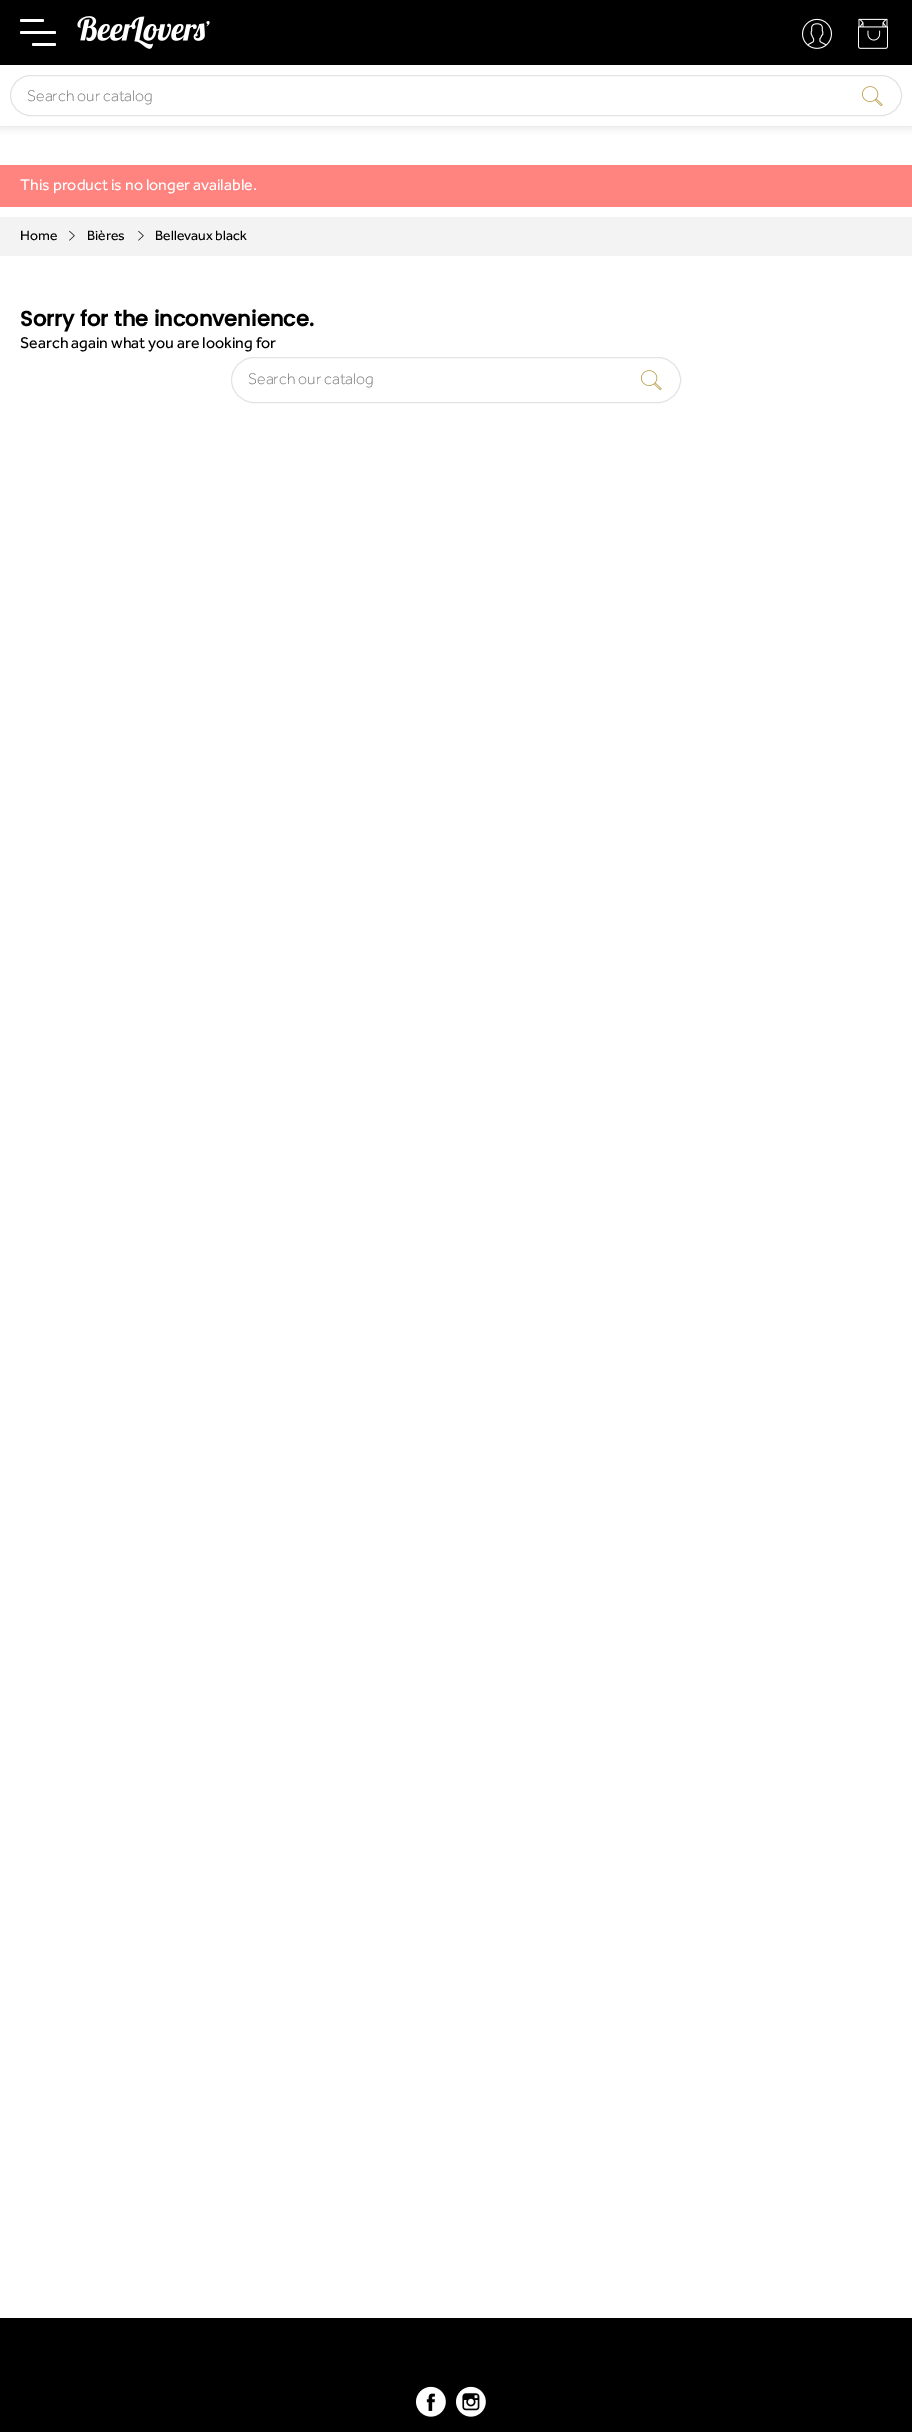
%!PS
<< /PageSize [912 2432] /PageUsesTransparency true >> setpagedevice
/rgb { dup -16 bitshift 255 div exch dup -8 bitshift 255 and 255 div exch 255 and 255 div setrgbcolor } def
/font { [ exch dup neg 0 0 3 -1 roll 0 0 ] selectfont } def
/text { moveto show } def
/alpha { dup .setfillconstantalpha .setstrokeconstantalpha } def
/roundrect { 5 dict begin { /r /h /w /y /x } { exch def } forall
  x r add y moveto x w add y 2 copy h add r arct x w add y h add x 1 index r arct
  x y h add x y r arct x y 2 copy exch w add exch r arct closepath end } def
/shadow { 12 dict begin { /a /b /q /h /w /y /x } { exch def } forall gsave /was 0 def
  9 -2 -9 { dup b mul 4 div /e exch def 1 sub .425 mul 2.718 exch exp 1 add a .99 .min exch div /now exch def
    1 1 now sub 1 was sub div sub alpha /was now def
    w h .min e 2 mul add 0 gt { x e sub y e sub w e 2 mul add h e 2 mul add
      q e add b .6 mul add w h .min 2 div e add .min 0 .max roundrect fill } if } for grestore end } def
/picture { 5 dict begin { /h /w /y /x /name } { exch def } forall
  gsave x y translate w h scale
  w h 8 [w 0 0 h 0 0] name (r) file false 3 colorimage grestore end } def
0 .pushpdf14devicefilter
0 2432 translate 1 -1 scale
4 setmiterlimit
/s1 { /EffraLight-Light 16 font 16#757575 rgb } def
/s2 { /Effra-Regular 16 font 16#FFFFFF rgb } def
/s3 { /Effra-Regular 14 font 16#000000 rgb } def
/s4 { /Poppins-Bold 21 font 16#000000 rgb } def
/s5 { /Effra-Regular 16 font 16#000000 rgb } def
16#FFFFFF rgb
0 0 912 2432 rectfill
16#000000 rgb
0 0 912 65 rectfill
16#FFFFFF rgb
20 31 36 3 1.5 roundrect fill
20 19 24 3 1.5 roundrect fill
32 43 24 3 1.5 roundrect fill
(pic1.raw) 77 16 133 33 picture
(pic2.raw) 802 18 30 31 picture
(pic3.raw) 858 18 30 31 picture
gsave
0 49 moveto 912 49 lineto 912 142 lineto 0 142 lineto closepath 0 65 moveto 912 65 lineto 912 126 lineto 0 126 lineto closepath eoclip newpath
16#000000 rgb
0 65 912 61 0 5 0.15 shadow
grestore
16#E3E3E3 rgb
10.5 75.5 891 40 20 roundrect stroke
s1
(Search our catalog) 27 101 text
(pic4.raw) 862 86 21 21 picture
16#FF8480 rgb
0 165 912 42 rectfill
s2
(This product is no longer available.) 20 190 text
16#F3F3F3 rgb
0 217 912 39 rectfill
s3
(Home) 20 240 text
(pic5.raw) 69 230 6 11 picture
(Bières) 87 240 text
(pic5.raw) 138 230 6 11 picture
(Bellevaux black) 155 240 text
s4
(Sorry for the inconvenience.) 20 326 text
s5
(Search again what you are looking for) 20 348 text
16#E3E3E3 rgb
231.5 357.5 449 45 22.5 roundrect stroke
s1
(Search our catalog) 248 384 text
(pic4.raw) 641 370 21 21 picture
16#000000 rgb
0 2318 912 114 rectfill
(pic6.raw) 416 2386 30 31 picture
(pic7.raw) 456 2386 30 31 picture
.poppdf14devicefilter showpage
